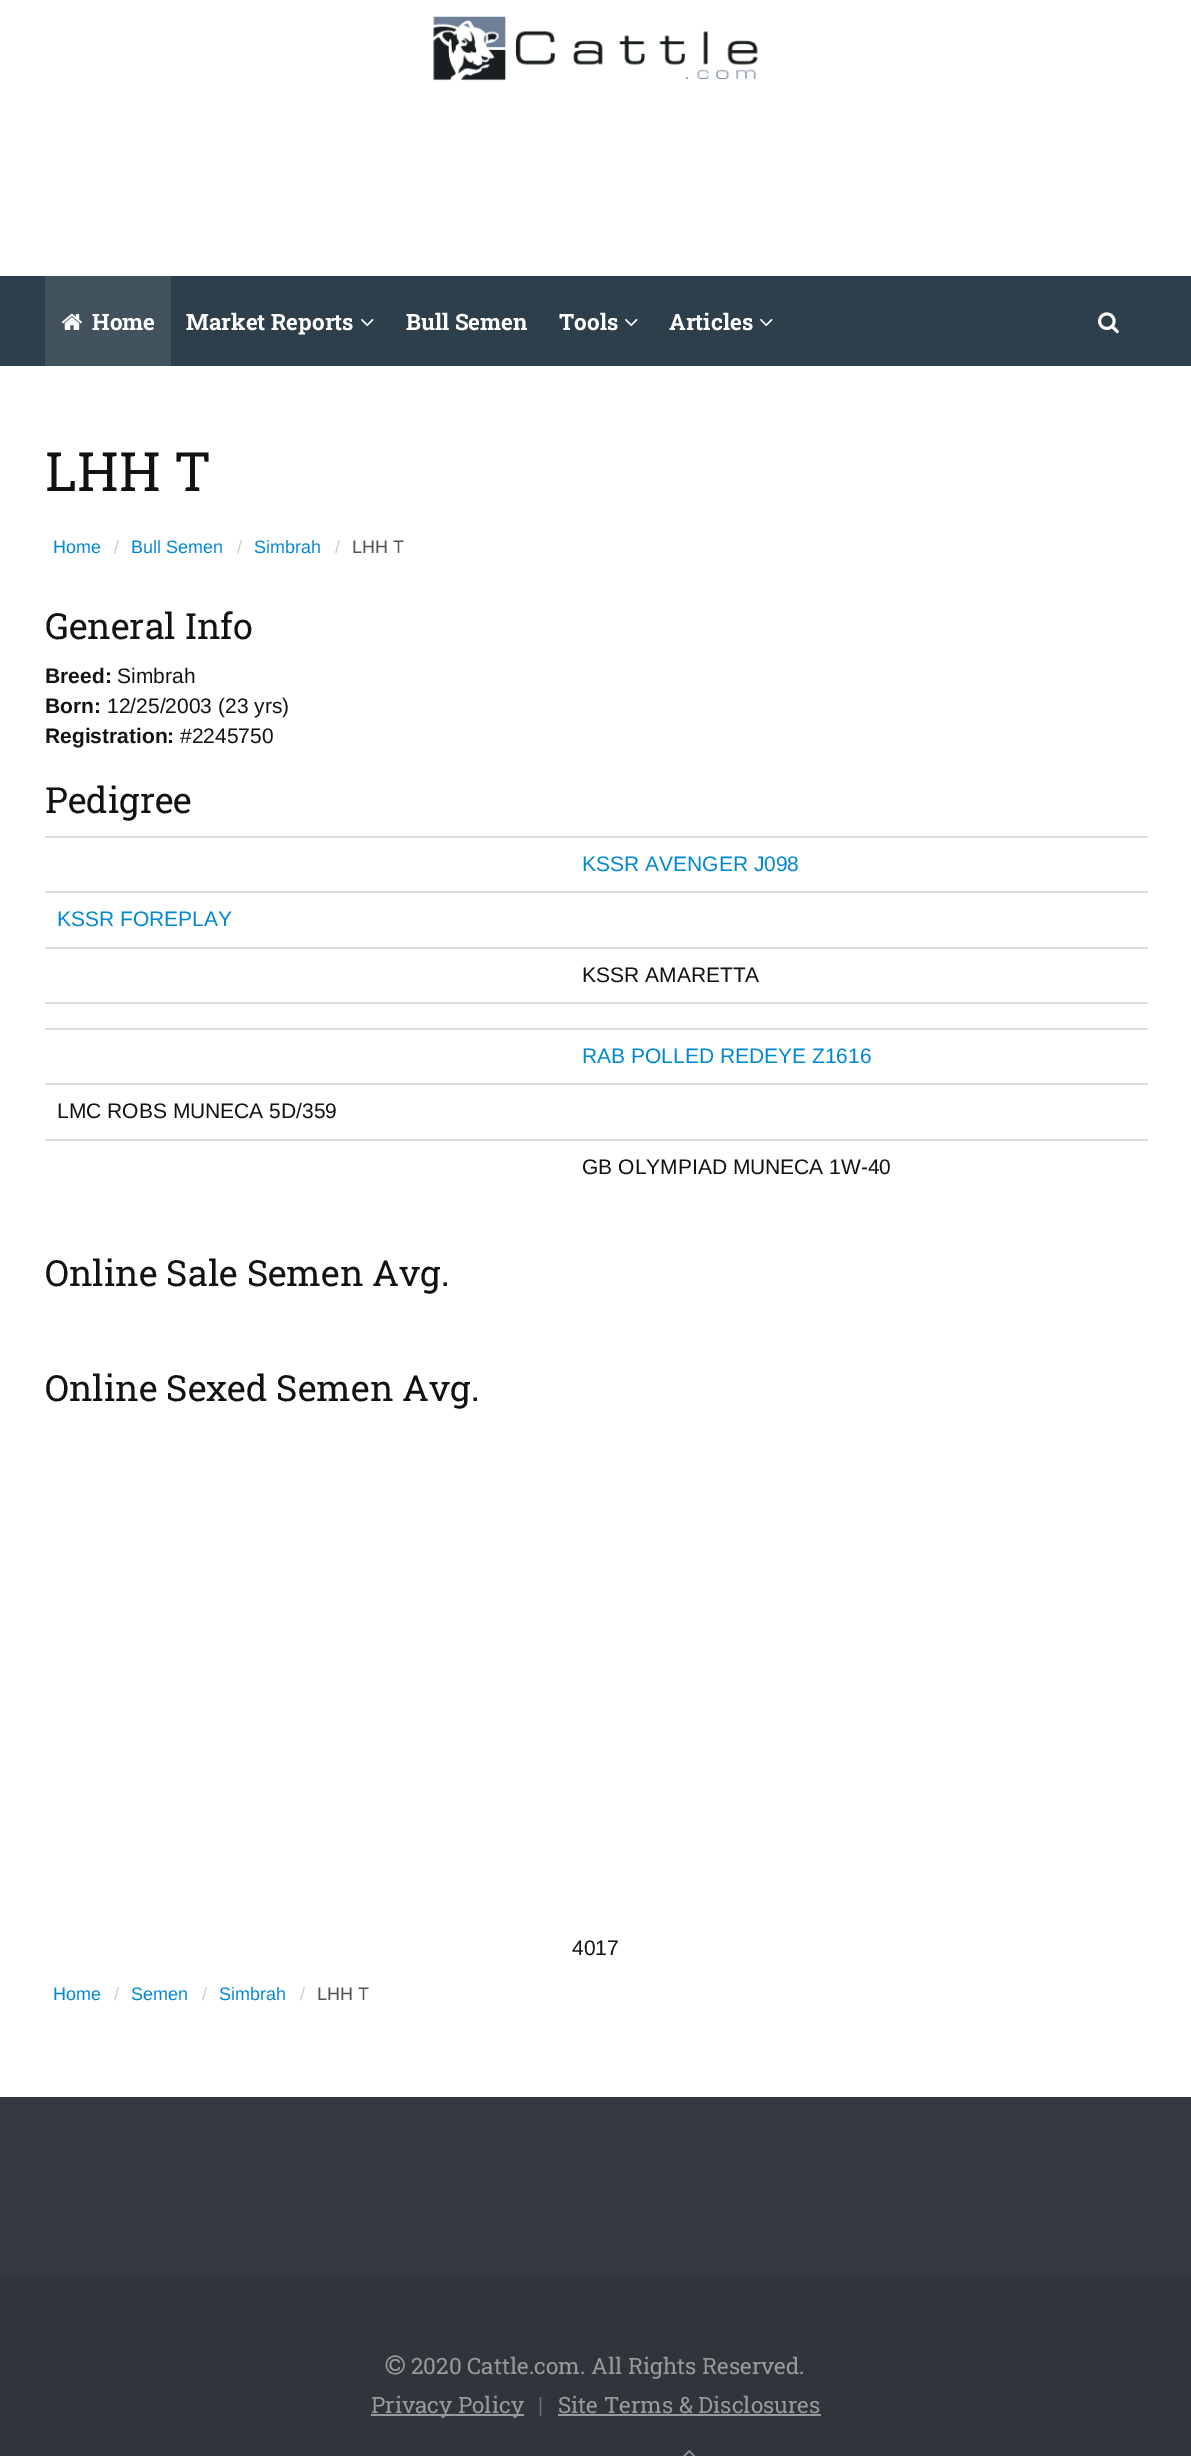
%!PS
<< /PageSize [1191 2456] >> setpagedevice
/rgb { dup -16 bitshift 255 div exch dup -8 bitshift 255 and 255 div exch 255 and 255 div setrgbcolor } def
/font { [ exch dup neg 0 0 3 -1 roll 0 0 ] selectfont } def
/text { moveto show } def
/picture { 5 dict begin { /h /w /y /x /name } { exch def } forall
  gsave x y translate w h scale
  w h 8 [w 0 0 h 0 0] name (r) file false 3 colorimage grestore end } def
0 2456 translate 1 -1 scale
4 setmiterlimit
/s1 { /RobotoSlab-Bold 22.5 font 16#FFFFFF rgb } def
/s2 { /RobotoSlab-Regular 54 font 16#121212 rgb } def
/s3 { /LiberationSans-Regular 18 font 16#0288D1 rgb } def
/s4 { /LiberationSans-Regular 18 font 16#CCCCCC rgb } def
/s5 { /LiberationSans-Regular 18 font 16#555555 rgb } def
/s6 { /RobotoSlab-Regular 36 font 16#121212 rgb } def
/s7 { /LiberationSans-Bold 21 font 16#121212 rgb } def
/s8 { /LiberationSans-Regular 21 font 16#121212 rgb } def
/s9 { /LiberationSans-Regular 21 font 16#0288D1 rgb } def
/s10 { /RobotoSlab-Regular 22.5 font 16#989A9D rgb } def
/s11 { /RobotoSlab-Regular 22.5 font 16#6F7176 rgb } def
16#FFFFFF rgb
0 0 1191 2456 rectfill
(pic1.raw) 433 16 325 65 picture
16#2D3F4B rgb
0 276 1191 90 rectfill
16#42525D rgb
45 276 126 90 rectfill
(pic2.raw) 61 313 21 17 picture
s1
(Home) 92 330 text
(Market Reports) 186 330 text
(pic3.raw) 361 319 13 8 picture
(Bull Semen) 406 330 text
(Tools) 559 330 text
(pic3.raw) 625 319 13 8 picture
(Articles) 669 330 text
(pic3.raw) 760 319 13 8 picture
(pic4.raw) 1098 312 21 22 picture
s2
(LHH T) 45 491 text
s3
(Home) 53 553 text
s4
(/) 114 553 text
s3
(Bull Semen) 131 553 text
s4
(/) 237 553 text
s3
(Simbrah) 254 553 text
s4
(/) 335 553 text
s5
(LHH T) 352 553 text
s6
(General Info) 45 639 text
s7
(Breed:) 45 683 text
s8
(Simbrah) 117 683 text
s7
(Born:) 45 713 text
s8
(12/25/2003 \(23 yrs\)) 107 713 text
s7
(Registration:) 45 743 text
s8
(#2245750) 180 743 text
s6
(Pedigree) 45 813 text
16#DDDDDD rgb
45 836 1103 2 rectfill
s9
(KSSR AVENGER J098) 582 871 text
16#DDDDDD rgb
45 891 1103 2 rectfill
s9
(KSSR FOREPLAY) 57 926 text
16#DDDDDD rgb
45 947 1103 2 rectfill
s8
(KSSR AMARETTA) 582 982 text
16#DDDDDD rgb
45 1002 1103 2 rectfill
45 1028 1103 2 rectfill
s9
(RAB POLLED REDEYE Z1616) 582 1063 text
16#DDDDDD rgb
45 1083 1103 2 rectfill
s8
(LMC ROBS MUNECA 5D/359) 57 1118 text
16#DDDDDD rgb
45 1139 1103 2 rectfill
s8
(GB OLYMPIAD MUNECA 1W-40) 582 1174 text
s6
(Online Sale Semen Avg.) 45 1286 text
(Online Sexed Semen Avg.) 45 1401 text
s8
(4017) 572 1955 text
s3
(Home) 53 2000 text
s4
(/) 114 2000 text
s3
(Semen) 131 2000 text
s4
(/) 202 2000 text
s3
(Simbrah) 219 2000 text
s4
(/) 300 2000 text
s5
(LHH T) 317 2000 text
16#343840 rgb
0 2097 1191 180 rectfill
16#31343B rgb
0 2277 1191 179 rectfill
(pic5.raw) 385 2355 20 20 picture
s10
(2020 Cattle.com. All Rights Reserved.) 411 2374 text
371 2414 153 2 rectfill
(Privacy Policy) 371 2413 text
s11
(|) 538 2413 text
s10
(Site Terms & Disclosures) 558 2413 text
558 2414 263 2 rectfill
(pic6.raw) 683 2450 12 6 picture
showpage
